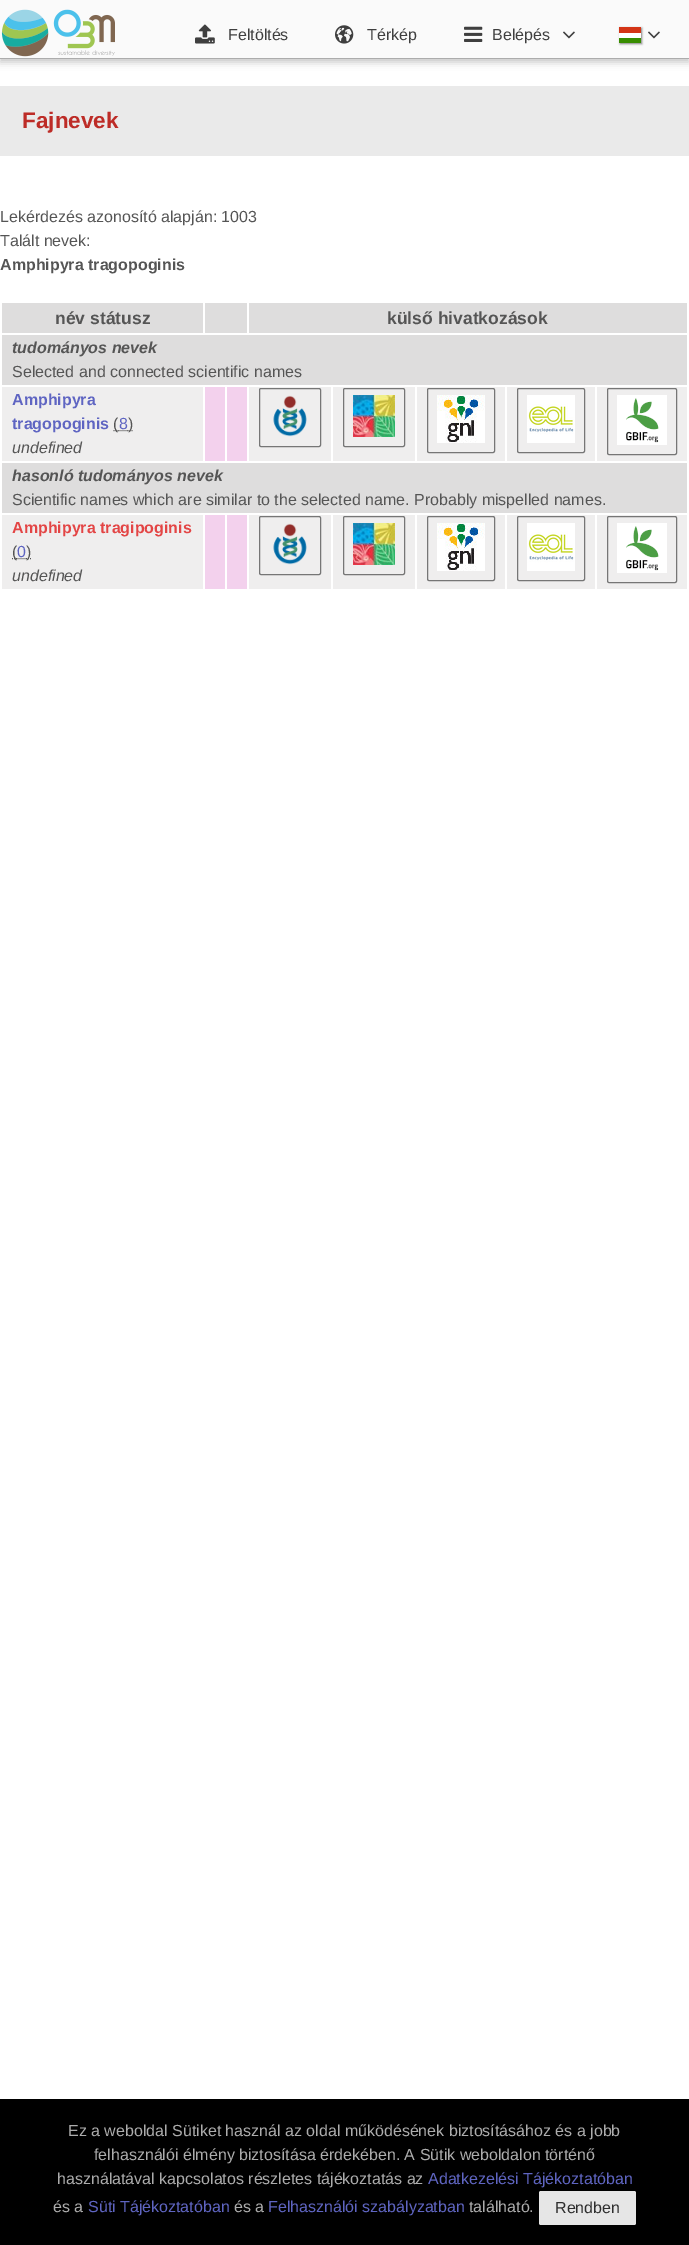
%!PS
<< /PageSize [689 2245] /PageUsesTransparency true >> setpagedevice
/rgb { dup -16 bitshift 255 div exch dup -8 bitshift 255 and 255 div exch 255 and 255 div setrgbcolor } def
/font { [ exch dup neg 0 0 3 -1 roll 0 0 ] selectfont } def
/text { moveto show } def
/alpha { dup .setfillconstantalpha .setstrokeconstantalpha } def
/roundrect { 5 dict begin { /r /h /w /y /x } { exch def } forall
  x r add y moveto x w add y 2 copy h add r arct x w add y h add x 1 index r arct
  x y h add x y r arct x y 2 copy exch w add exch r arct closepath end } def
/shadow { 12 dict begin { /a /b /q /h /w /y /x } { exch def } forall gsave /was 0 def
  9 -2 -9 { dup b mul 4 div /e exch def 1 sub .425 mul 2.718 exch exp 1 add a .99 .min exch div /now exch def
    1 1 now sub 1 was sub div sub alpha /was now def
    w h .min e 2 mul add 0 gt { x e sub y e sub w e 2 mul add h e 2 mul add
      q e add b .6 mul add w h .min 2 div e add .min 0 .max roundrect fill } if } for grestore end } def
/picture { 5 dict begin { /h /w /y /x /name } { exch def } forall
  gsave x y translate w h scale
  w h 8 [w 0 0 h 0 0] name (r) file false 3 colorimage grestore end } def
0 .pushpdf14devicefilter
0 2245 translate 1 -1 scale
4 setmiterlimit
/s1 { /LiberationSans-Regular 16 font 16#3F3F3F rgb } def
/s2 { /LiberationSans-Bold 22.5 font 16#BD2C27 rgb } def
/s3 { /LiberationSans-Regular 16 font 16#555555 rgb } def
/s4 { /LiberationSans-Bold 16 font 16#555555 rgb } def
/s5 { /LiberationSans-Bold 17.5 font 16#555555 rgb } def
/s6 { /LiberationSans-BoldItalic 16 font 16#555555 rgb } def
/s7 { /LiberationSans-Bold 16 font 16#5F65C2 rgb } def
/s8 { /LiberationSans-Regular 16 font 16#5F65C2 rgb } def
/s9 { /LiberationSans-Italic 16 font 16#555555 rgb } def
/s10 { /LiberationSans-Bold 16 font 16#E34545 rgb } def
/s11 { /LiberationSans-Regular 16 font 16#ACACAC rgb } def
/s12 { /LiberationSans-Regular 16 font 16#2E2E2E rgb } def
16#FFFFFF rgb
0 0 689 2245 rectfill
16#000000 rgb
0 3 689 59 0 4 0.24 shadow
16#FAFAFA rgb
0 0 689 58 rectfill
16#ACACAC rgb
0 58 689 1 rectfill
(pic1.raw) 1 9 114 48 picture
(pic2.raw) 195 24 20 20 picture
s1
(Feltöltés) 228 40 text
(pic3.raw) 335 25 19 19 picture
(Térkép) 367 40 text
(pic4.raw) 464 26 19 16 picture
(Belépés) 492 40 text
(pic5.raw) 563 31 12 8 picture
16#808080 rgb
620 28 22 16 0 1 1 shadow
16#FFFFFF rgb
619 33 22 5 rectfill
16#388D00 rgb
619 38 22 5 rectfill
16#D43516 rgb
619 27 22 6 rectfill
(pic5.raw) 648 31 12 8 picture
16#EAEAEA rgb
0 86 689 70 rectfill
s2
(Fajnevek) 22 128 text
s3
(Lekérdezés azonosító alapján: 1003) 0 222 text
(Talált nevek:) 0 246 text
s4
(Amphipyra tragopoginis) 0 270 text
16#DEDDDD rgb
2 303 201 30 rectfill
s5
(név státusz) 55 324 text
16#DEDDDD rgb
205 303 42 30 rectfill
249 303 438 30 rectfill
s5
(külső hivatkozások) 387 324 text
16#DEDDDD rgb
2 335 685 50 rectfill
s6
(tudományos nevek) 12 353 text
s3
(Selected and connected scientific names) 12 377 text
16#EFEEEE rgb
2 387 201 74 rectfill
s7
(Amphipyra) 12 405 text
(tragopoginis) 12 429 text
16#555555 rgb
113.5 430.5 moveto 114.5 430.5 lineto 115.5 430.5 moveto 116.5 430.5 lineto 117.5 430.5 moveto 118.5 430.5 lineto stroke
s3
(\() 113 429 text
[1 1] 0 setdash
118.5 430.5 moveto 127.5 430.5 lineto stroke
s8
(8) 119 429 text
16#555555 rgb
[] 0 setdash
127.5 430.5 moveto 128.5 430.5 lineto 129.5 430.5 moveto 130.5 430.5 lineto 131.5 430.5 moveto 132.5 430.5 lineto stroke
(\)) 128 429 text
s9
(undefined) 12 453 text
16#F3D1ED rgb
205 387 20 74 rectfill
227 387 20 74 rectfill
16#EFEEEE rgb
249 387 82 74 rectfill
16#767676 rgb
259.5 388.5 61 58 1.5 roundrect stroke
(pic6.raw) 273 395 34 42 picture
16#EFEEEE rgb
333 387 82 74 rectfill
16#767676 rgb
343.5 388.5 61 58 1.5 roundrect stroke
(pic7.raw) 353 395 42 42 picture
16#EFEEEE rgb
417 387 88 74 rectfill
16#767676 rgb
427.5 388.5 67 64 1.5 roundrect stroke
(pic8.raw) 437 395 48 48 picture
16#EFEEEE rgb
507 387 88 74 rectfill
16#767676 rgb
517.5 388.5 67 64 1.5 roundrect stroke
(pic9.raw) 527 395 48 48 picture
16#EFEEEE rgb
597 387 90 74 rectfill
16#767676 rgb
607.5 388.5 69 66 1.5 roundrect stroke
(pic10.raw) 617 395 50 50 picture
16#DEDDDD rgb
2 463 685 50 rectfill
s6
(hasonló tudományos nevek) 12 481 text
s3
(Scientific names which are similar to the selected name. Probably mispelled names.) 12 505 text
16#EFEEEE rgb
2 515 201 74 rectfill
s10
(Amphipyra tragipoginis) 12 533 text
16#555555 rgb
12 558.5 moveto 13 558.5 lineto 14 558.5 moveto 15 558.5 lineto 16 558.5 moveto 17 558.5 lineto stroke
s3
(\() 12 557 text
[1 1] 0 setdash
17.5 558.5 moveto 26 558.5 lineto stroke
s8
(0) 17 557 text
16#555555 rgb
[] 0 setdash
26 558.5 moveto 27 558.5 lineto 28 558.5 moveto 29 558.5 lineto 30 558.5 moveto 31 558.5 lineto stroke
(\)) 26 557 text
s9
(undefined) 12 581 text
16#F3D1ED rgb
205 515 20 74 rectfill
227 515 20 74 rectfill
16#EFEEEE rgb
249 515 82 74 rectfill
16#767676 rgb
259.5 516.5 61 58 1.5 roundrect stroke
(pic6.raw) 273 523 34 42 picture
16#EFEEEE rgb
333 515 82 74 rectfill
16#767676 rgb
343.5 516.5 61 58 1.5 roundrect stroke
(pic7.raw) 353 523 42 42 picture
16#EFEEEE rgb
417 515 88 74 rectfill
16#767676 rgb
427.5 516.5 67 64 1.5 roundrect stroke
(pic8.raw) 437 523 48 48 picture
16#EFEEEE rgb
507 515 88 74 rectfill
16#767676 rgb
517.5 516.5 67 64 1.5 roundrect stroke
(pic9.raw) 527 523 48 48 picture
16#EFEEEE rgb
597 515 90 74 rectfill
16#767676 rgb
607.5 516.5 69 66 1.5 roundrect stroke
(pic10.raw) 617 523 50 50 picture
16#000000 rgb
0 2099 689 146 rectfill
s11
(Ez a weboldal Sütiket használ az oldal működésének biztosításához és a jobb) 68 2136 text
(felhasználói élmény biztosítása érdekében. A Sütik weboldalon történő) 94 2160 text
(használatával kapcsolatos részletes tájékoztatás az) 57 2184 text
s8
(Adatkezelési Tájékoztatóban) 428 2184 text
s11
(és a) 53 2212 text
s8
(Süti Tájékoztatóban) 88 2212 text
s11
(és a) 234 2212 text
s8
(Felhasználói szabályzatban) 268 2212 text
s11
(található.) 469 2212 text
16#E6E6E6 rgb
539 2191 97 34 2 roundrect fill
s12
(Rendben) 555 2213 text
.poppdf14devicefilter showpage
